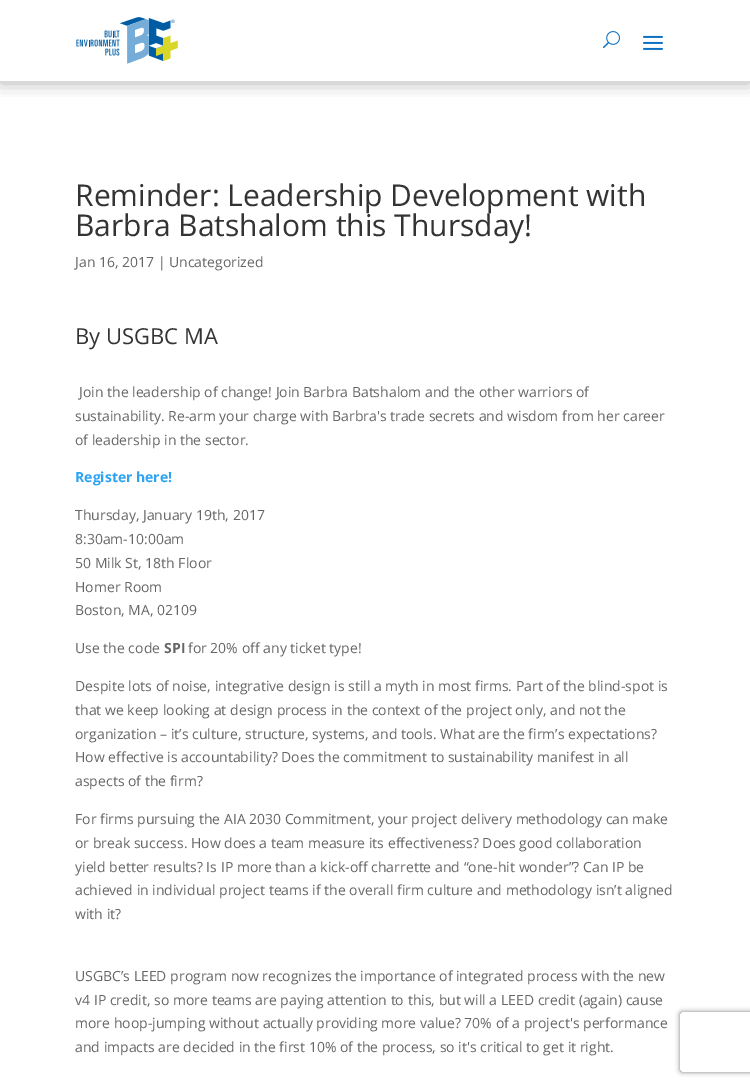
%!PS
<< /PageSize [750 1086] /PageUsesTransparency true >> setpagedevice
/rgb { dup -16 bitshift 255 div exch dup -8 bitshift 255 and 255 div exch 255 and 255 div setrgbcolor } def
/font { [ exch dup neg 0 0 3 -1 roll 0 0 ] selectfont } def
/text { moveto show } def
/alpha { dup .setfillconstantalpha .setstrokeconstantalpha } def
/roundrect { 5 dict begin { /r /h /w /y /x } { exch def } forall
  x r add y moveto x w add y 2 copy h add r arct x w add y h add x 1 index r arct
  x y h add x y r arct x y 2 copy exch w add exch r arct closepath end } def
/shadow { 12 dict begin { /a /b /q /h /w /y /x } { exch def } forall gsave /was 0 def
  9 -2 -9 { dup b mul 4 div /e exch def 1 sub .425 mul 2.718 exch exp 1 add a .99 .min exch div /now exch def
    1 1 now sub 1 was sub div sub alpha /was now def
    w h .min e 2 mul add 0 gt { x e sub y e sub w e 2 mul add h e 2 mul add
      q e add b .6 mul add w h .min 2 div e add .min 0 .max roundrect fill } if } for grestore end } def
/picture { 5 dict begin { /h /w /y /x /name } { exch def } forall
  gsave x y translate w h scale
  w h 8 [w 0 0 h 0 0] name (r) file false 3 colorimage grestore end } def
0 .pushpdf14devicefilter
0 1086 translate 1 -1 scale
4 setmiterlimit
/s1 { /OpenSans-Regular 30 font 16#333333 rgb } def
/s2 { /OpenSans-Regular 14 font 16#666666 rgb } def
/s3 { /OpenSans-Regular 22 font 16#333333 rgb } def
/s4 { /OpenSans-Bold 14 font 16#2EA3F2 rgb } def
/s5 { /OpenSans-Bold 14 font 16#666666 rgb } def
16#FFFFFF rgb
0 0 750 1086 rectfill
gsave
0 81 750 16 rectclip
16#000000 rgb
0 2 750 81 0 9 0.3 shadow
grestore
(pic1.raw) 76 17 102 47 picture
(pic2.raw) 603 31 17 18 picture
(pic3.raw) 643 35 20 15 picture
s1
(Reminder: Leadership Development with) 75 206 text
(Barbra Batshalom this Thursday!) 75 236 text
s2
(Jan 16, 2017 | Uncategorized) 75 267 text
s3
(By USGBC MA) 75 344 text
s2
(Join the leadership of change! Join Barbra Batshalom and the other warriors of) 79 397 text
(sustainability. Re-arm your charge with Barbra's trade secrets and wisdom from her career) 75 421 text
(of leadership in the sector.) 75 445 text
s4
(Register here!) 75 482 text
s2
(Thursday, January 19th, 2017) 75 520 text
(8:30am-10:00am) 75 544 text
(50 Milk St, 18th Floor) 75 568 text
(Homer Room) 75 592 text
(Boston, MA, 02109) 75 615 text
(Use the code) 75 653 text
s5
(SPI) 164 653 text
s2
(for 20% off any ticket type!) 188 653 text
(Despite lots of noise, integrative design is still a myth in most firms. Part of the blind-spot is) 75 691 text
(that we keep looking at design process in the context of the project only, and not the) 75 715 text
(organization – it’s culture, structure, systems, and tools. What are the firm’s expectations?) 75 739 text
(How effective is accountability? Does the commitment to sustainability manifest in all) 75 762 text
(aspects of the firm?) 75 786 text
(For firms pursuing the AIA 2030 Commitment, your project delivery methodology can make) 75 824 text
(or break success. How does a team measure its effectiveness? Does good collaboration) 75 848 text
(yield better results? Is IP more than a kick-off charrette and “one-hit wonder”? Can IP be) 75 872 text
(achieved in individual project teams if the overall firm culture and methodology isn’t aligned) 75 895 text
(with it?) 75 919 text
(USGBC’s LEED program now recognizes the importance of integrated process with the new) 75 981 text
(v4 IP credit, so more teams are paying attention to this, but will a LEED credit \(again\) cause) 75 1005 text
(more hoop-jumping without actually providing more value? 70% of a project's performance) 75 1028 text
(and impacts are decided in the first 10% of the process, so it's critical to get it right.) 75 1052 text
gsave
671 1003 moveto 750 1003 lineto 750 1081 lineto 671 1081 lineto closepath 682 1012 moveto 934 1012 lineto 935 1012 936 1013 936 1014 curveto 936 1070 lineto 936 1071 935 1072 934 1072 curveto 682 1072 lineto 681 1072 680 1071 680 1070 curveto 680 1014 lineto 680 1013 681 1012 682 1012 curveto closepath eoclip newpath
16#808080 rgb
680 1012 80 60 2 2.5 1 shadow
grestore
.poppdf14devicefilter showpage
